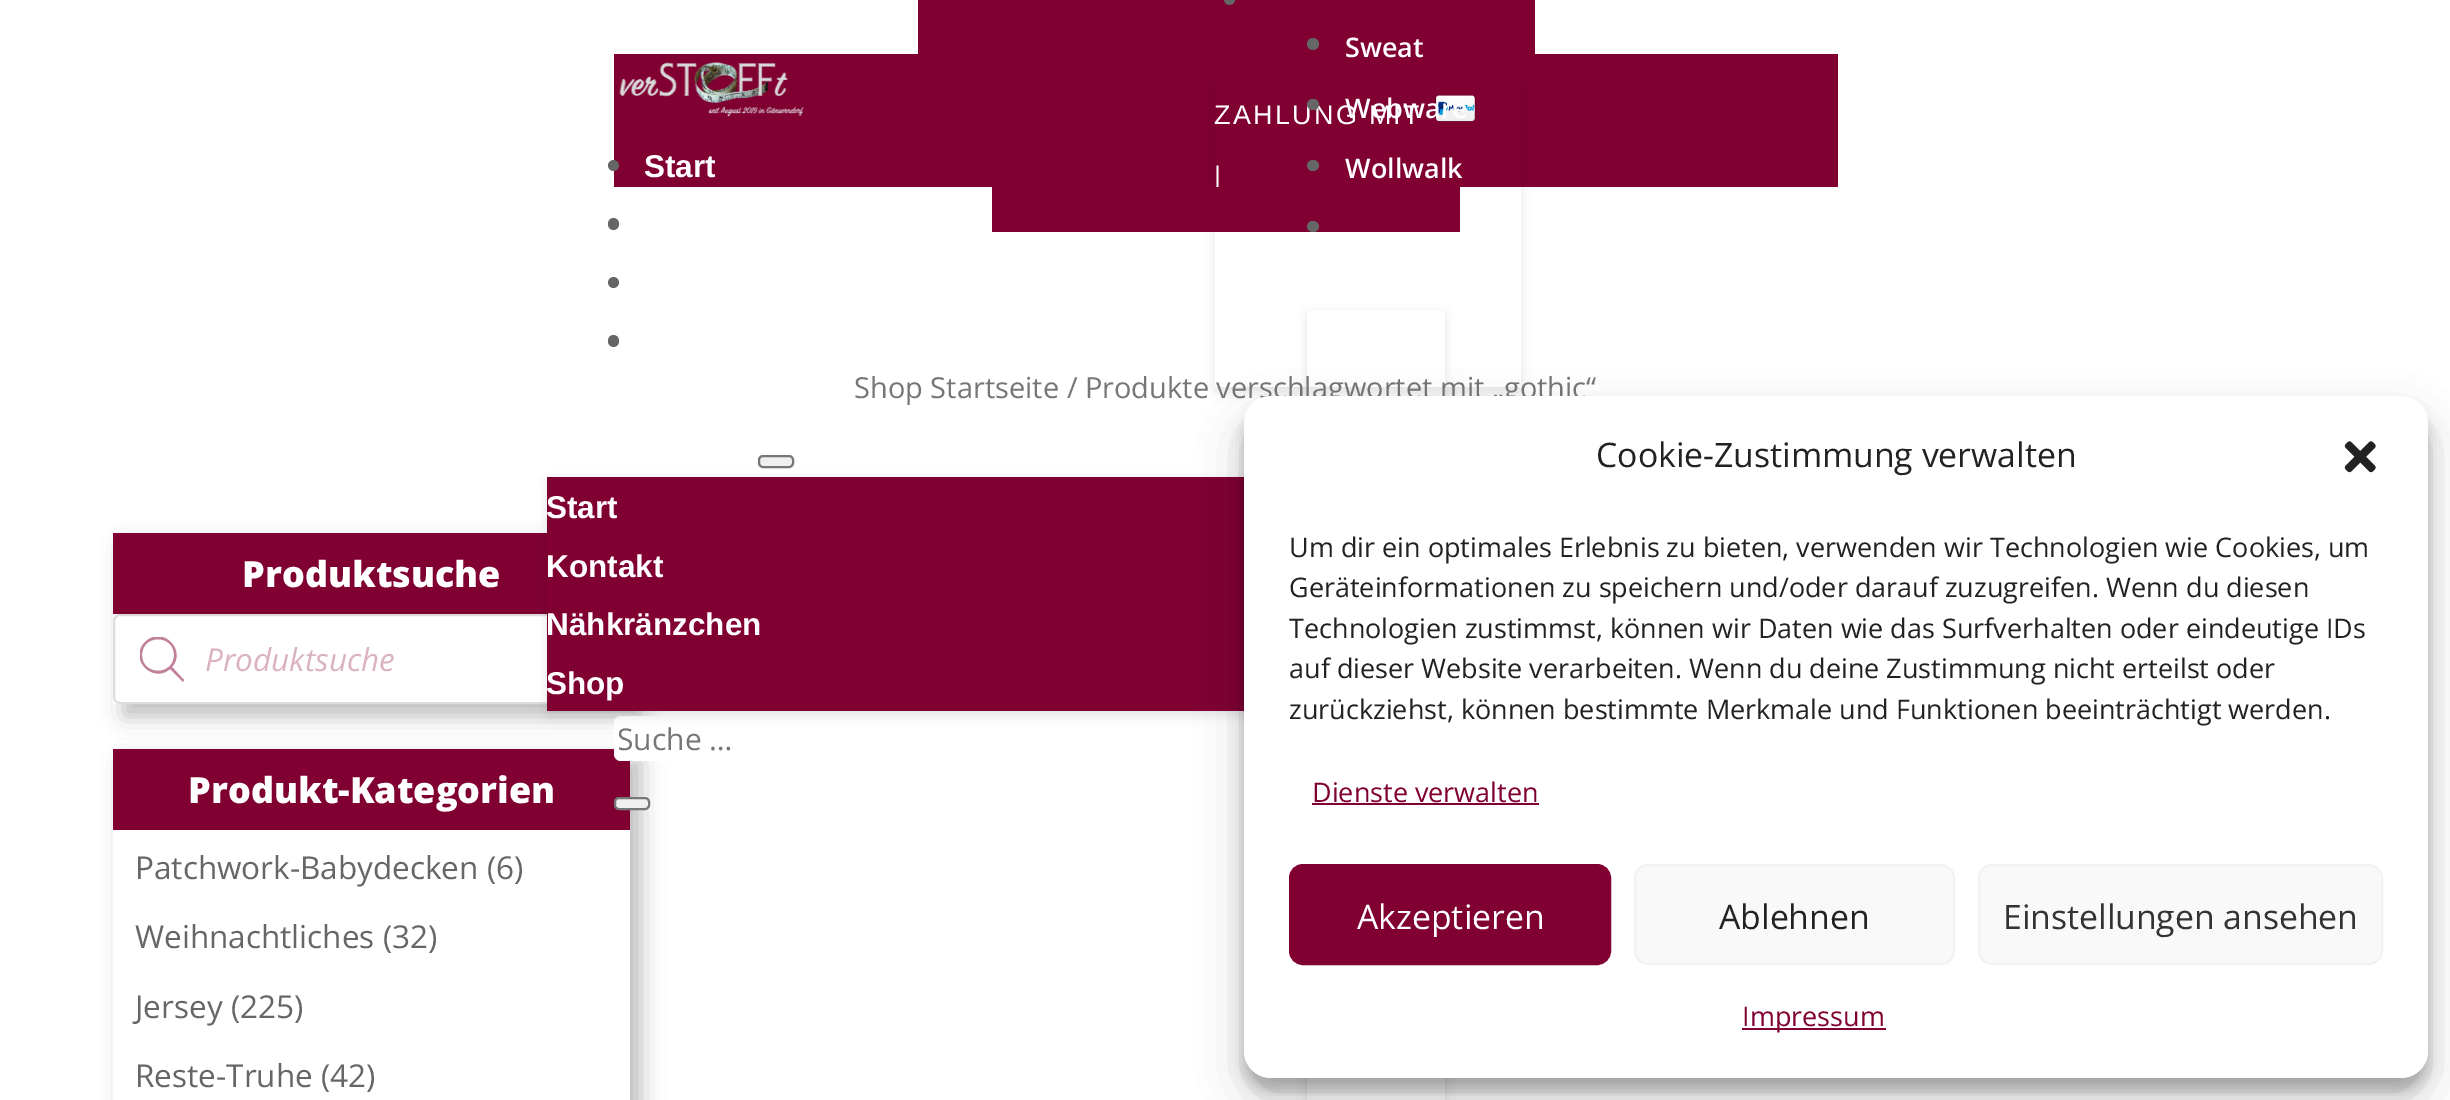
%!PS
<< /PageSize [2450 1100] /PageUsesTransparency true >> setpagedevice
/rgb { dup -16 bitshift 255 div exch dup -8 bitshift 255 and 255 div exch 255 and 255 div setrgbcolor } def
/font { [ exch dup neg 0 0 3 -1 roll 0 0 ] selectfont } def
/text { moveto show } def
/alpha { dup .setfillconstantalpha .setstrokeconstantalpha } def
/circle { newpath 0 360 arc closepath } def
/roundrect { 5 dict begin { /r /h /w /y /x } { exch def } forall
  x r add y moveto x w add y 2 copy h add r arct x w add y h add x 1 index r arct
  x y h add x y r arct x y 2 copy exch w add exch r arct closepath end } def
/shadow { 12 dict begin { /a /b /q /h /w /y /x } { exch def } forall gsave /was 0 def
  9 -2 -9 { dup b mul 4 div /e exch def 1 sub .425 mul 2.718 exch exp 1 add a .99 .min exch div /now exch def
    1 1 now sub 1 was sub div sub alpha /was now def
    w h .min e 2 mul add 0 gt { x e sub y e sub w e 2 mul add h e 2 mul add
      q e add b .6 mul add w h .min 2 div e add .min 0 .max roundrect fill } if } for grestore end } def
/picture { 5 dict begin { /h /w /y /x /name } { exch def } forall
  gsave x y translate w h scale
  w h 8 [w 0 0 h 0 0] name (r) file false 3 colorimage grestore end } def
0 .pushpdf14devicefilter
0 1100 translate 1 -1 scale
4 setmiterlimit
/s1 { /OpenSans-SemiBold 27 font 16#FFFFFF rgb } def
/s2 { /LiberationSans-Bold 31.5 font 16#FFFFFF rgb } def
/s3 { /OpenSans-Regular 30 font 16#767676 rgb } def
/s4 { /OpenSans-Regular 29 font 16#767676 rgb } def
/s5 { /OpenSans-ExtraBold 36 font 16#FFFFFF rgb } def
/s6 { /OpenSans-Italic 31.5 font 16#D9B3C2 rgb } def
/s7 { /OpenSans-Regular 31.5 font 16#666666 rgb } def
/s8 { /OpenSans-Regular 33.75 font 16#222222 rgb } def
/s9 { /OpenSans-Regular 27 font 16#222222 rgb } def
/s10 { /OpenSans-Regular 27 font 16#800032 rgb } def
/s11 { /OpenSans-Regular 33.75 font 16#FFFFFF rgb } def
/s12 { /OpenSans-Regular 33.75 font 16#333333 rgb } def
16#FFFFFF rgb
0 0 2450 1100 rectfill
16#800032 rgb
614 54 1224 133 rectfill
gsave
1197 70 moveto 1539 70 lineto 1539 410 lineto 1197 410 lineto closepath 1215 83 moveto 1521 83 lineto 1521 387 lineto 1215 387 lineto closepath eoclip newpath
16#000000 rgb
1215 88 306 304 0 5.5 0.1 shadow
grestore
/LiberationSans-Regular 27 font
16#FFFFFF rgb
1214 185 moveto 2.25 0 (|) ashow
16#800032 rgb
992 187 468 45 rectfill
918 0 617 54 rectfill
16#666666 rgb
1313 44 6 circle fill
s1
(Sweat) 1345 57 text
/LiberationSans-Regular 27 font
1214 124 moveto 2.25 0 (ZAHLUNG MIT) ashow
16#666666 rgb
1307 99 12 11 5.5 roundrect fill
(pic2.raw) 1435 95 41 27 picture
s1
(Webware) 1345 118 text
16#666666 rgb
1307 160 12 11 5.5 roundrect fill
s1
(Wollwalk) 1345 178 text
16#666666 rgb
1307 221 12 11 5.5 roundrect fill
gsave
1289 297 moveto 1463 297 lineto 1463 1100 lineto 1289 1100 lineto closepath 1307 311 moveto 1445 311 lineto 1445 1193 lineto 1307 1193 lineto closepath eoclip newpath
16#000000 rgb
1307 315 138 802 0 5.5 0.1 shadow
grestore
(pic1.raw) 619 62 185 55 picture
613.5 165.5 5.5 circle fill
s2
(Start) 644 177 text
16#666666 rgb
608 218 11 12 5.5 roundrect fill
613.5 282.5 5.5 circle fill
608 335 11 12 5.5 roundrect fill
16#EFEFEF rgb
759 456 34 11 4 roundrect gsave fill grestore
16#767676 rgb
2 setlinewidth
stroke
gsave
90 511 moveto 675 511 lineto 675 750 lineto 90 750 lineto closepath 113 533 moveto 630 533 lineto 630 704 lineto 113 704 lineto closepath eoclip newpath
16#BBBBBB rgb
124 545 517 171 0 11 1 shadow
grestore
gsave
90 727 moveto 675 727 lineto 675 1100 lineto 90 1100 lineto closepath 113 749 moveto 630 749 lineto 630 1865 lineto 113 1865 lineto closepath eoclip newpath
16#BBBBBB rgb
124 761 517 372 0 11 1 shadow
grestore
16#800032 rgb
113 749 517 81 rectfill
16#FFFFFF rgb
614 716 403 45 7 roundrect fill
16#800032 rgb
113 533 434 81 rectfill
16#DDDDDD rgb
114 615 515 88 6 roundrect stroke
16#000000 rgb
547 482 1235 234 0 5.5 0.1 shadow
16#800032 rgb
547 477 697 234 rectfill
s2
(Start) 546 518 text
(Kontakt) 546 577 text
(Nähkränzchen) 546 635 text
(Shop) 546 694 text
gsave
619 718 364 40 rectclip
s3
(Suche …) 617 750 text
grestore
16#EFEFEF rgb
615 798 34 11 4 roundrect gsave fill grestore
16#767676 rgb
stroke
16#666666 rgb
1229.5 -0.5 5.5 circle fill
s4
(Shop Startseite / Produkte verschlagwortet mit „gothic“) 854 398 text
s5
(Produktsuche) 242 587 text
gsave
140 637 45 45 rectclip
16#C08099 rgb
184 680 moveto 172 667 lineto 187 650 162 625 145 642 curveto 128 659 153 684 170 669 curveto 183 682 lineto closepath 142 655 moveto 142 634 174 634 174 655 curveto 174 676 142 676 142 655 curveto closepath fill
grestore
s6
(Produktsuche) 205 671 text
s5
(Produkt-Kategorien) 188 803 text
s7
(Patchwork-Babydecken \(6\)) 135 879 text
(Weihnachtliches \(32\)) 135 948 text
(Jersey \(225\)) 135 1018 text
(Reste-Truhe \(42\)) 135 1087 text
16#000000 rgb
1244 410 1184 681 27 7 0.23 shadow
1244 419 1184 681 27 22.5 0.19 shadow
16#FFFFFF rgb
1244 396 1184 682 27 roundrect fill
s8
(Cookie-Zustimmung verwalten) 1596 467 text
(pic3.raw) 2344 441 32 32 picture
s9
(Um dir ein optimales Erlebnis zu bieten, verwenden wir Technologien wie Cookies, um) 1289 557 text
(Geräteinformationen zu speichern und/oder darauf zuzugreifen. Wenn du diesen) 1289 597 text
(Technologien zustimmst, können wir Daten wie das Surfverhalten oder eindeutige IDs) 1289 638 text
(auf dieser Website verarbeiten. Wenn du deine Zustimmung nicht erteilst oder) 1289 678 text
(zurückziehst, können bestimmte Merkmale und Funktionen beeinträchtigt werden.) 1289 719 text
s10
(Dienste verwalten) 1312 802 text
1312 803 227 2 rectfill
1290 865 320 99 13 roundrect gsave fill grestore
stroke
s11
(Akzeptieren) 1357 929 text
16#F9F9F9 rgb
1635 865 319 99 13 roundrect gsave fill grestore
16#F2F2F2 rgb
stroke
s8
(Ablehnen) 1719 929 text
16#F9F9F9 rgb
1979 865 403 99 13 roundrect gsave fill grestore
16#F2F2F2 rgb
stroke
s12
(Einstellungen ansehen) 2003 929 text
16#800032 rgb
1742 1028 144 2 rectfill
s10
(Impressum) 1742 1026 text
.poppdf14devicefilter showpage
